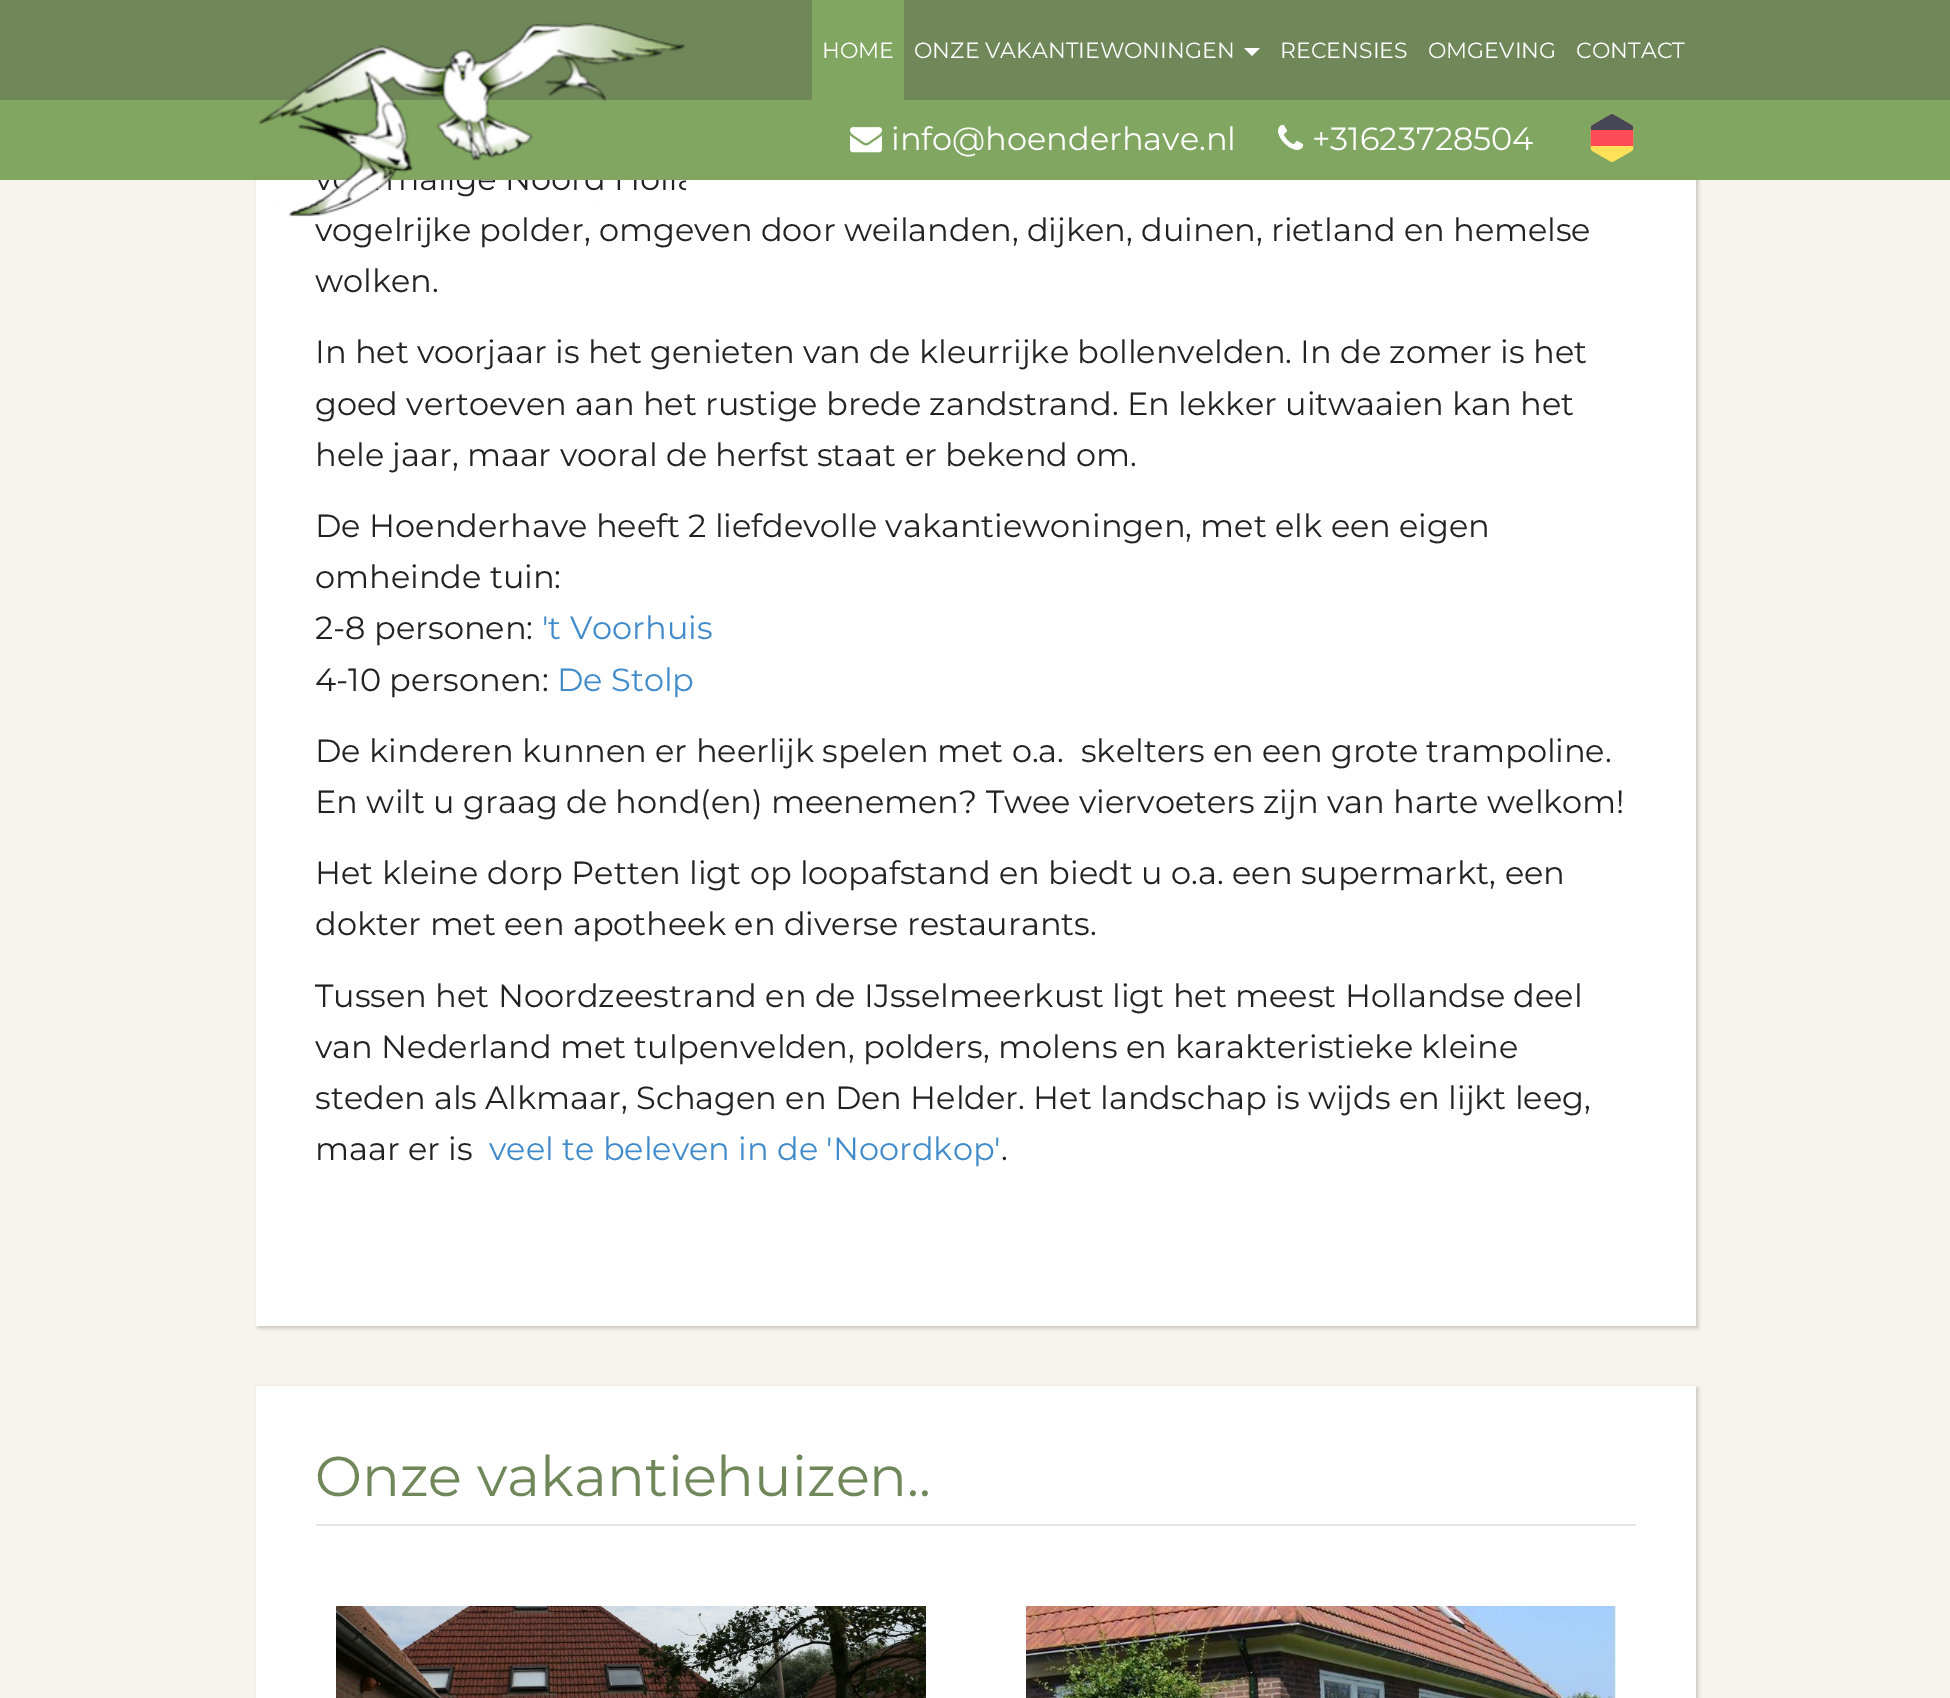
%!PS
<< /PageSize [1950 1698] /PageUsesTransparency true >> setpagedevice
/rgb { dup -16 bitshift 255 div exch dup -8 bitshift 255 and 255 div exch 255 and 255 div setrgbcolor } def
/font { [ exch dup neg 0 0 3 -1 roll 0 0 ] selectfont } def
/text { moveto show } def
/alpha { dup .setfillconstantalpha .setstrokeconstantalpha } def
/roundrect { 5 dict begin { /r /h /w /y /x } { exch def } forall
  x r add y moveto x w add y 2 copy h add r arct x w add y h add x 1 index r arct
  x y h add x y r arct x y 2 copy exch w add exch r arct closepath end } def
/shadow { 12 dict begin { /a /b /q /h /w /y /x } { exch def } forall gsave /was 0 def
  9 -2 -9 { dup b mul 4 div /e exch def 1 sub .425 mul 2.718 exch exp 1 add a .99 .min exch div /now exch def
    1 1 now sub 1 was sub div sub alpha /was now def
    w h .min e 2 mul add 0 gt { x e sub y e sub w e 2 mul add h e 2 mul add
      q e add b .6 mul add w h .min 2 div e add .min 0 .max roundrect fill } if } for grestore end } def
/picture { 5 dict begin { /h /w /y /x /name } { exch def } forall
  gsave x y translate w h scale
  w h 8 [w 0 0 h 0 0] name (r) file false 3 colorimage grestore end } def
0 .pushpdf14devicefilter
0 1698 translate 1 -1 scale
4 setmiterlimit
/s1 { /Montserrat-Thin 22 font 16#FFFFFF rgb } def
/s2 { /Montserrat-Thin 32 font 16#FFFFFF rgb } def
/s3 { /Montserrat-Thin 32 font 16#222222 rgb } def
/s4 { /Montserrat-Thin 32 font 16#428BCA rgb } def
/s5 { /Montserrat-Thin 56 font 16#6F8759 rgb } def
16#F7F4ED rgb
0 0 1950 1698 rectfill
16#000000 rgb
258 -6 1440 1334 0 2 0.2 shadow
16#6F8759 rgb
0 0 1950 100 rectfill
16#81A661 rgb
0 100 1950 80 rectfill
16#FFFFFF rgb
256 180 1440 1146 rectfill
(pic1.raw) 258 22 428 195 picture
16#81A661 rgb
812 0 92 100 rectfill
s1
(HOME) 822 58 text
(ONZE VAKANTIEWONINGEN) 914 58 text
1244 48 moveto 1260 48 lineto 1252 56 lineto closepath fill
(RECENSIES) 1280 58 text
(OMGEVING) 1428 58 text
(CONTACT) 1576 58 text
(pic2.raw) 850 127 32 26 picture
s2
(info@hoenderhave.nl) 891 150 text
(pic3.raw) 1278 124 26 26 picture
(+31623728504) 1312 150 text
(pic4.raw) 1590 114 44 48 picture
s3
(vogelrijke polder, omgeven door weilanden, dijken, duinen, rietland en hemelse) 315 241 text
(wolken.) 315 292 text
(In het voorjaar is het genieten van de kleurrijke bollenvelden. In de zomer is het) 315 363 text
(goed vertoeven aan het rustige brede zandstrand. En lekker uitwaaien kan het) 315 415 text
(hele jaar, maar vooral de herfst staat er bekend om.) 315 466 text
(De Hoenderhave heeft 2 liefdevolle vakantiewoningen, met elk een eigen) 315 537 text
(omheinde tuin:) 315 588 text
(2-8 personen:) 315 639 text
s4
('t Voorhuis) 542 639 text
s3
(4-10 personen:) 315 691 text
s4
(De Stolp) 557 691 text
s3
(De kinderen kunnen er heerlijk spelen met o.a.  skelters en een grote trampoline.) 315 762 text
(En wilt u graag de hond\(en\) meenemen? Twee viervoeters zijn van harte welkom!) 315 813 text
(Het kleine dorp Petten ligt op loopafstand en biedt u o.a. een supermarkt, een) 315 884 text
(dokter met een apotheek en diverse restaurants.) 315 935 text
(Tussen het Noordzeestrand en de IJsselmeerkust ligt het meest Hollandse deel) 315 1007 text
(van Nederland met tulpenvelden, polders, molens en karakteristieke kleine) 315 1058 text
(steden als Alkmaar, Schagen en Den Helder. Het landschap is wijds en lijkt leeg,) 315 1109 text
(maar er is) 315 1160 text
s4
(veel te beleven in de 'Noordkop') 489 1160 text
s3
(.) 1001 1160 text
16#000000 rgb
258 1388 1440 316 0 2 0.2 shadow
16#FFFFFF rgb
256 1386 1440 312 rectfill
16#E5E5E5 rgb
316 1524 1320 2 rectfill
s5
(Onze vakantiehuizen..) 315 1496 text
(pic5.raw) 336 1606 590 92 picture
(pic6.raw) 1026 1606 590 92 picture
.poppdf14devicefilter showpage
